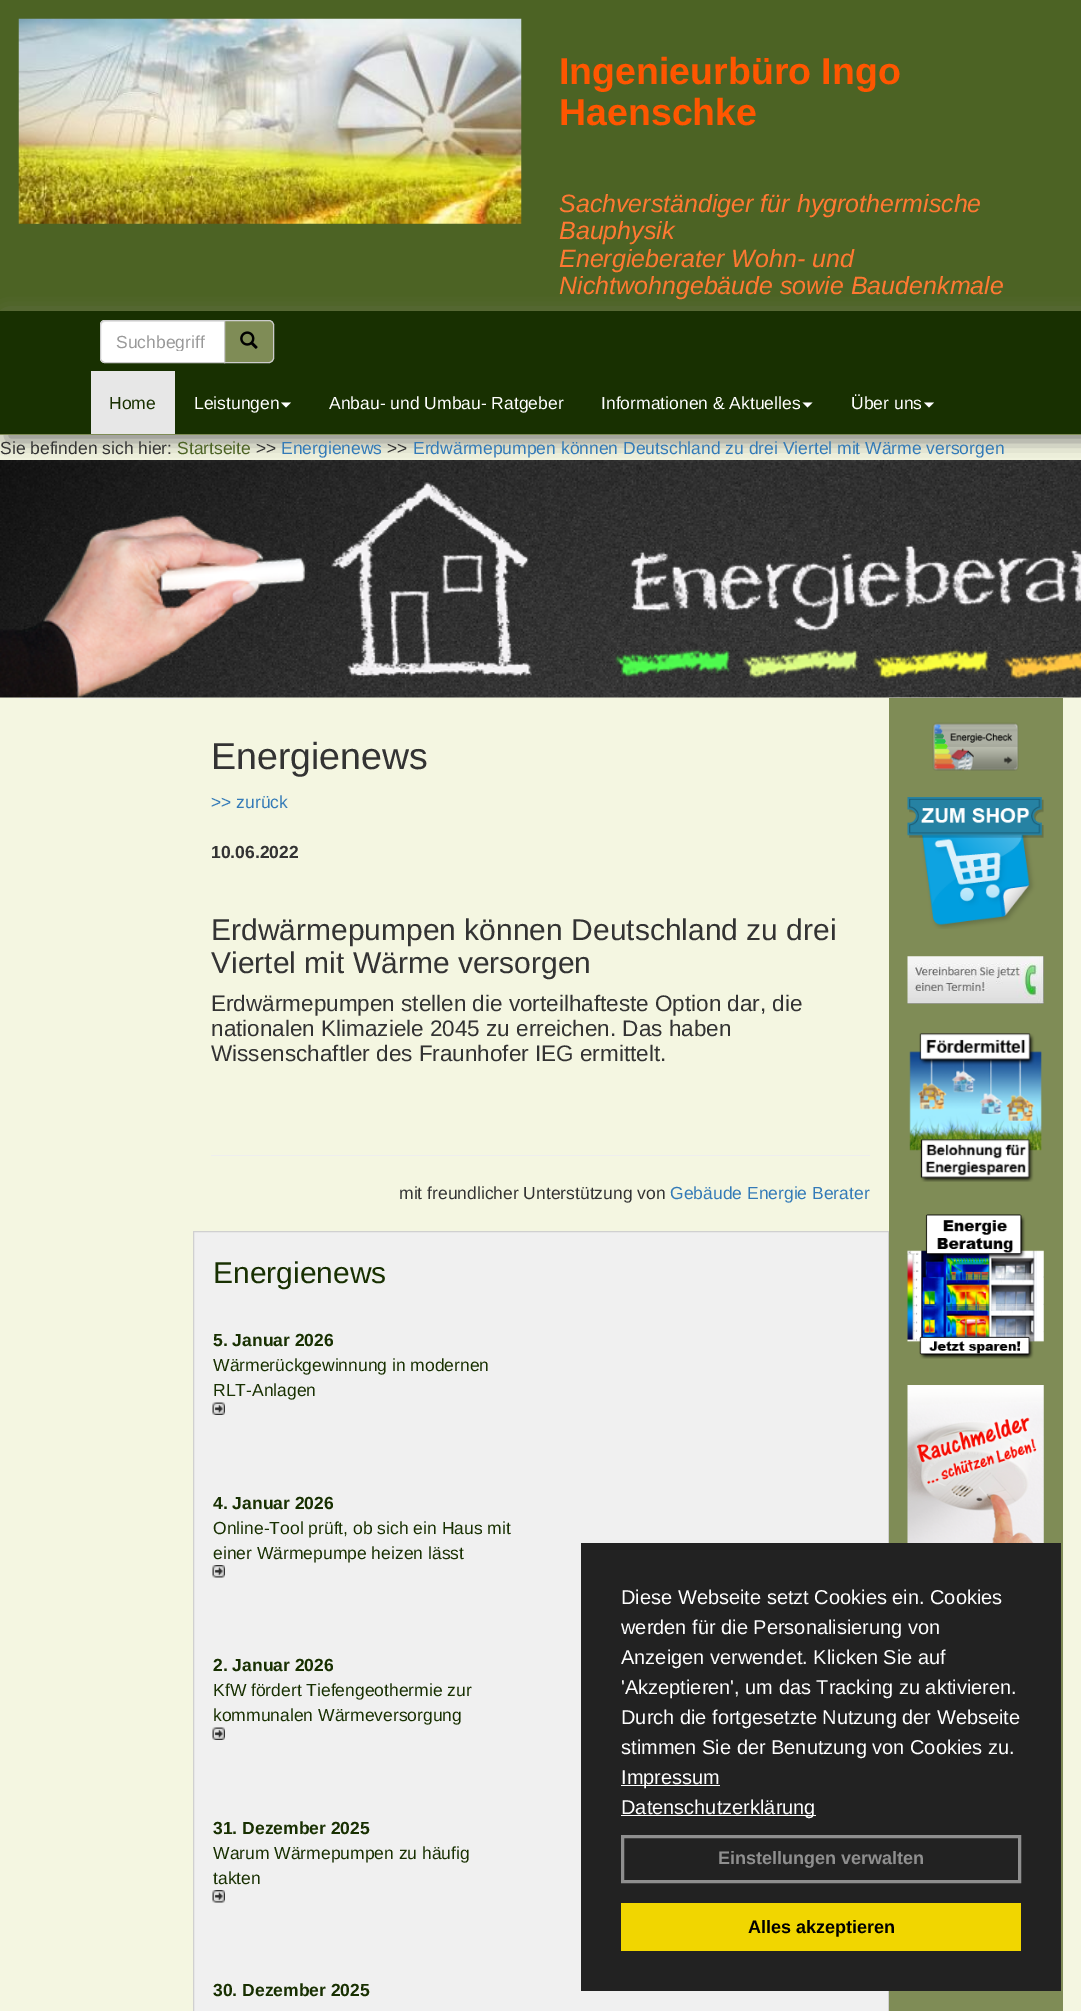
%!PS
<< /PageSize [1081 2011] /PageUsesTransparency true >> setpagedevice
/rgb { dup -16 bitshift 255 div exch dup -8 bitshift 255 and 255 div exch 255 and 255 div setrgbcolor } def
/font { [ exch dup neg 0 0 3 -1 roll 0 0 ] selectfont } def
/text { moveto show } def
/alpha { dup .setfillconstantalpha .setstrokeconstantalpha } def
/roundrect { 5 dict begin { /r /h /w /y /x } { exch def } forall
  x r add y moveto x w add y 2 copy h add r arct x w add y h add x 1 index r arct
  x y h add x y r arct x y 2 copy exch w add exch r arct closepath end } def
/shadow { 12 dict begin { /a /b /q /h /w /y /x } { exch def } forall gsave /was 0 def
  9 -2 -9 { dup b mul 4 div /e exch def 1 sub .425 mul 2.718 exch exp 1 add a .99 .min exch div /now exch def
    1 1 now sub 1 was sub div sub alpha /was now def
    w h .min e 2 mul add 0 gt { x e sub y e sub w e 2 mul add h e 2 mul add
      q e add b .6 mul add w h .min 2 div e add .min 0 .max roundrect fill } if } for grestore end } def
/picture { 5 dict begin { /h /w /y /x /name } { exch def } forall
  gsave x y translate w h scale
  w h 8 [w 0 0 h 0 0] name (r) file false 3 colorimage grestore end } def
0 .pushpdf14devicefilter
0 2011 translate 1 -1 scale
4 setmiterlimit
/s1 { /LiberationSans-Bold 37.5 font 16#FF5600 rgb } def
/s2 { /LiberationSans-Italic 25 font 16#FF7932 rgb } def
/s3 { /LiberationSans-Regular 17.5 font 16#999999 rgb } def
/s4 { /LiberationSans-Regular 17.5 font 16#183001 rgb } def
/s5 { /LiberationSans-Regular 17.5 font 16#FFFFFF rgb } def
/s6 { /LiberationSans-Regular 17.5 font 16#333333 rgb } def
/s7 { /LiberationSans-Regular 17.5 font 16#4C6324 rgb } def
/s8 { /LiberationSans-Regular 17.5 font 16#337AB7 rgb } def
/s9 { /LiberationSans-Regular 37.5 font 16#333333 rgb } def
/s10 { /LiberationSans-Bold 17.5 font 16#333333 rgb } def
/s11 { /LiberationSans-Regular 30 font 16#333333 rgb } def
/s12 { /LiberationSans-Regular 22.5 font 16#333333 rgb } def
/s13 { /LiberationSans-Regular 30 font 16#183001 rgb } def
/s14 { /LiberationSans-Bold 17.5 font 16#183001 rgb } def
/s15 { /LiberationSans-Regular 20 font 16#FFFFFF rgb } def
/s16 { /LiberationSans-Bold 18 font 16#8F8F8F rgb } def
/s17 { /LiberationSans-Bold 18 font 16#000000 rgb } def
16#F4F6E1 rgb
0 0 1081 2011 rectfill
16#4C6324 rgb
0 0 1081 311 rectfill
(pic1.raw) 18 18 504 206 picture
s1
(Ingenieurbüro Ingo) 559 84 text
(Haenschke) 559 125 text
s2
(Sachverständiger für hygrothermische) 559 212 text
(Bauphysik) 559 239 text
(Energieberater Wohn- und) 559 267 text
(Nichtwohngebäude sowie Baudenkmale) 559 294 text
(pic3.raw) 0 460 1081 238 picture
16#808080 rgb
6 318 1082 123 0 9.5 1 shadow
16#183001 rgb
0 311 1081 123 rectfill
16#7F8C56 rgb
0 434 1081 1 rectfill
16#FFFFFF rgb
105 320 moveto 225 320 lineto 225 363 lineto 105 363 lineto 102 363 100 361 100 358 curveto 100 325 lineto 100 322 102 320 105 320 curveto closepath fill
16#ECECEC rgb
105 322 moveto 224 322 lineto 224 321 lineto 105 321 lineto 103 321 101 323 101 325 curveto 101 326 lineto 101 324 103 322 105 322 curveto closepath fill
16#CCCCCC rgb
105 320.5 moveto 224.5 320.5 lineto 224.5 362.5 lineto 105 362.5 lineto 102.5 362.5 100.5 360.5 100.5 358 curveto 100.5 325 lineto 100.5 322.5 102.5 320.5 105 320.5 curveto closepath stroke
gsave
116 331 93 20 rectclip
s3
(Suchbegriff) 116 348 text
grestore
16#7F8C56 rgb
224.5 320.5 moveto 269 320.5 lineto 271.5 320.5 273.5 322.5 273.5 325 curveto 273.5 358 lineto 273.5 360.5 271.5 362.5 269 362.5 curveto 224.5 362.5 lineto closepath gsave fill grestore
16#CCCCCC rgb
stroke
(pic2.raw) 240 331 18 18 picture
16#E7E7E7 rgb
91 371 84 63 rectfill
s4
(Home) 109 409 text
s5
(Leistungen) 194 409 text
281 402.5 moveto 291 402.5 lineto 286 407.5 lineto closepath fill
(Anbau- und Umbau- Ratgeber) 329 409 text
(Informationen & Aktuelles) 601 409 text
802.5 402.5 moveto 812.5 402.5 lineto 807.5 407.5 lineto closepath fill
(Über uns) 851 409 text
924 402.5 moveto 934 402.5 lineto 929 407.5 lineto closepath fill
s6
(Sie befinden sich hier:) 0 454 text
s7
(Startseite) 177 454 text
s6
(>>) 256 454 text
s8
(Energienews) 281 454 text
s6
(>>) 387 454 text
s8
(Erdwärmepumpen können Deutschland zu drei Viertel mit Wärme versorgen) 413 454 text
16#F0F0F0 rgb
19 698 174 1 rectfill
s9
(Energienews) 211 769 text
s8
(>> zurück) 211 808 text
s10
(10.06.2022) 211 858 text
s11
(Erdwärmepumpen können Deutschland zu drei) 211 940 text
(Viertel mit Wärme versorgen) 211 973 text
s12
(Erdwärmepumpen stellen die vorteilhafteste Option dar, die) 211 1011 text
(nationalen Klimaziele 2045 zu erreichen. Das haben) 211 1036 text
(Wissenschaftler des Fraunhofer IEG ermittelt.) 211 1061 text
16#EEEEEE rgb
211 1155 659 1 rectfill
s6
(mit freundlicher Unterstützung von) 399 1199 text
s8
(Gebäude Energie Berater) 670 1199 text
16#F0F0F0 rgb
193.5 1231.5 moveto 888.5 1231.5 lineto 888.5 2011.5 lineto 193.5 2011.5 lineto closepath gsave fill grestore
16#D0D0D0 rgb
stroke
s13
(Energienews) 213 1283 text
s14
(5. Januar 2026) 213 1346 text
s4
(Wärmerückgewinnung in modernen) 213 1371 text
(RLT-Anlagen) 213 1396 text
(pic4.raw) 212 1402 13 13 picture
s14
(4. Januar 2026) 213 1509 text
s4
(Online-Tool prüft, ob sich ein Haus mit) 213 1534 text
(einer Wärmepumpe heizen lässt) 213 1559 text
(pic5.raw) 212 1565 13 13 picture
s14
(2. Januar 2026) 213 1671 text
s4
(KfW fördert Tiefengeothermie zur) 213 1696 text
(kommunalen Wärmeversorgung) 213 1721 text
(pic4.raw) 212 1727 13 13 picture
s14
(31. Dezember 2025) 213 1834 text
s4
(Warum Wärmepumpen zu häufig) 213 1859 text
(takten) 213 1884 text
(pic5.raw) 212 1890 13 13 picture
s14
(30. Dezember 2025) 213 1996 text
16#7F8C56 rgb
889 698 174 1313 rectfill
(pic6.raw) 932 722 87 49 picture
(pic7.raw) 907 797 137 132 picture
(pic8.raw) 907 956 137 48 picture
(pic9.raw) 909 1033 133 149 picture
(pic10.raw) 907 1214 137 145 picture
(pic11.raw) 907 1385 137 158 picture
16#222222 rgb
581 1543 480 448 rectfill
s15
(Diese Webseite setzt Cookies ein. Cookies) 621 1604 text
(werden für die Personalisierung von) 621 1634 text
(Anzeigen verwendet. Klicken Sie auf) 621 1664 text
('Akzeptieren', um das Tracking zu aktivieren.) 621 1694 text
(Durch die fortgesetzte Nutzung der Webseite) 621 1724 text
(stimmen Sie der Benutzung von Cookies zu.) 621 1754 text
621 1785 99 1 rectfill
(Impressum) 621 1784 text
621 1815 195 1 rectfill
(Datenschutzerklärung) 621 1814 text
16#8F8F8F rgb
3 setlinewidth
622.5 1836.5 397 45 rectstroke
s16
(Einstellungen verwalten) 718 1864 text
16#F1D600 rgb
621 1903 400 48 rectfill
s17
(Alles akzeptieren) 748 1933 text
.poppdf14devicefilter showpage
